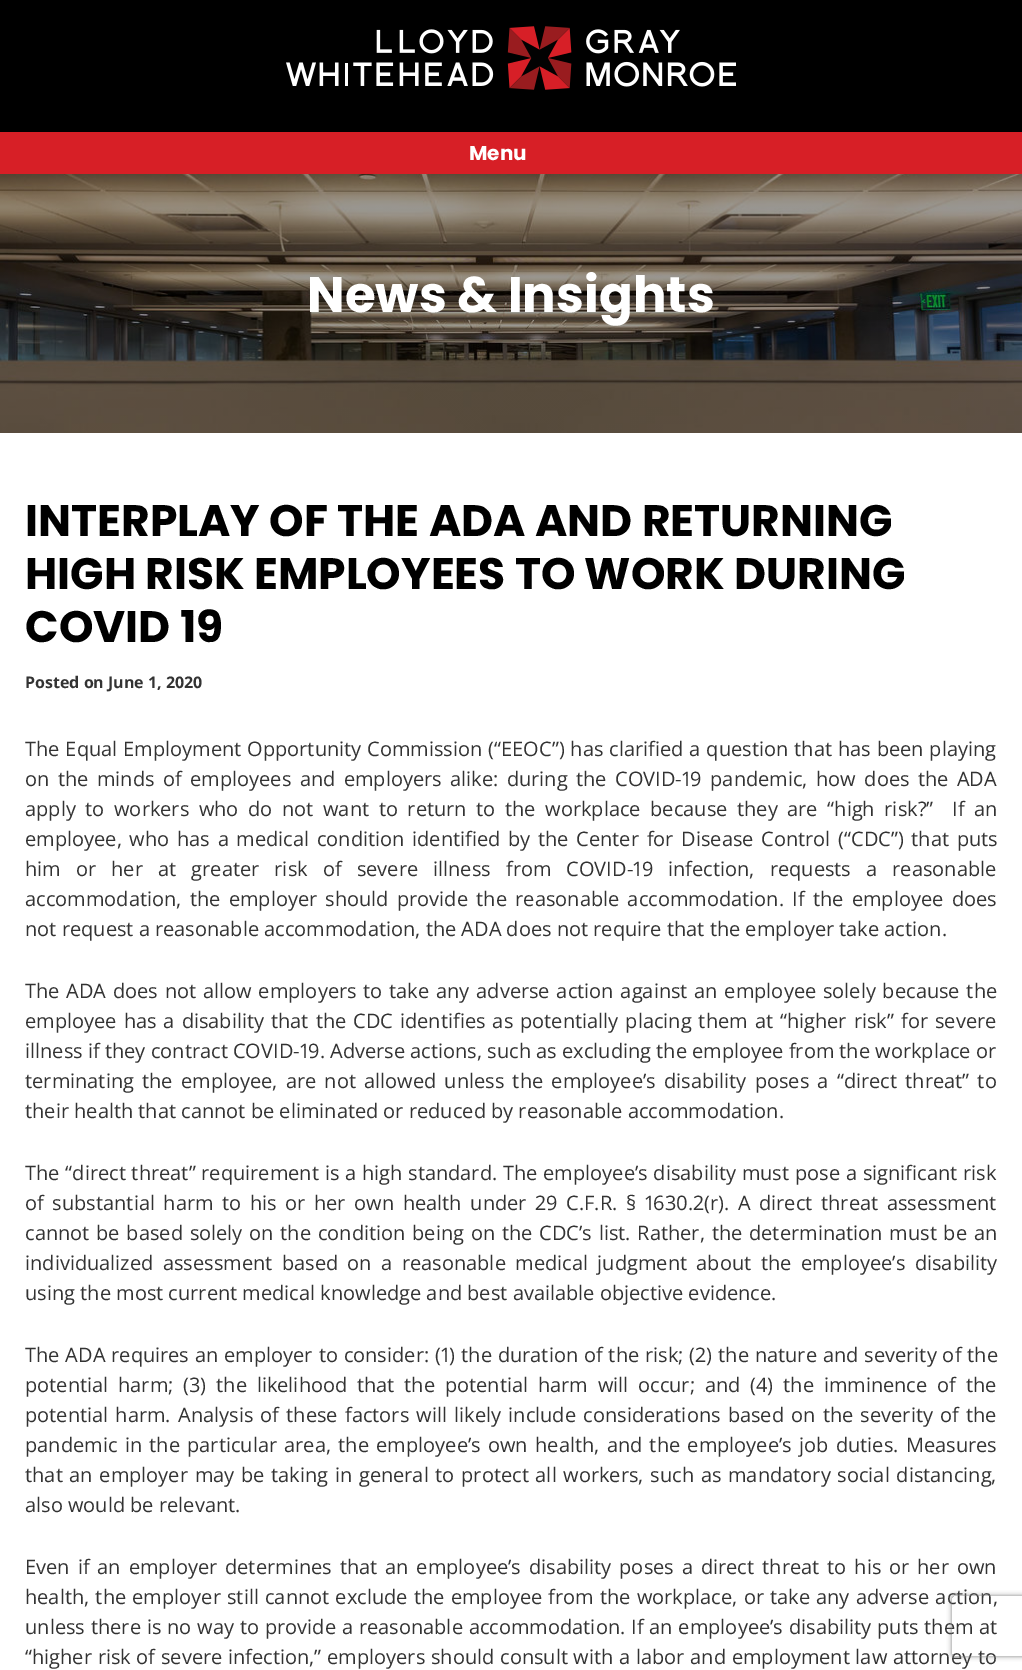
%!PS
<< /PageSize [1022 1670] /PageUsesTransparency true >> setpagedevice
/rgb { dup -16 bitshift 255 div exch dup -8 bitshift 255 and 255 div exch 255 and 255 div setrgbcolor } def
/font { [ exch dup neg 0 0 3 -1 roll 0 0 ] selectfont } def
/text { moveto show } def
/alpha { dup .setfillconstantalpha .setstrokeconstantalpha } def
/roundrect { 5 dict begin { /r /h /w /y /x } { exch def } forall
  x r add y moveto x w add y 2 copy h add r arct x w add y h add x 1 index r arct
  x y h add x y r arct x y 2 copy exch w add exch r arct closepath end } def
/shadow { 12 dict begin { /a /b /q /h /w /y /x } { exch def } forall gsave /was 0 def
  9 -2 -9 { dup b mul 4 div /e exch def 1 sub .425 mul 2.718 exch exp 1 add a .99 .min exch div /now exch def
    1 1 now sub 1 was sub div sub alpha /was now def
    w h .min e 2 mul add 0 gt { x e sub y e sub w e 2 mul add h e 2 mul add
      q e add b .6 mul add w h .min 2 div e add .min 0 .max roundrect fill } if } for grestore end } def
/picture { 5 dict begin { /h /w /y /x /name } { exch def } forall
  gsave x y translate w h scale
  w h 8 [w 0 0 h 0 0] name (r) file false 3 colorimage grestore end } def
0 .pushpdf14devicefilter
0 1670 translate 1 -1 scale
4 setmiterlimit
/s1 { /Poppins-Bold 20 font 16#FFFFFF rgb } def
/s2 { /Poppins-Bold 50 font 16#FFFFFF rgb } def
/s3 { /Poppins-Bold 44 font 16#000000 rgb } def
/s4 { /OpenSans-Bold 16 font 16#333333 rgb } def
/s5 { /OpenSans-Regular 20 font 16#333333 rgb } def
/s6 { /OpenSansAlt-Regular 20 font 16#333333 rgb } def
16#FFFFFF rgb
0 0 1022 1670 rectfill
16#000000 rgb
0 0 1022 132 rectfill
(pic1.raw) 286 26 450 64 picture
16#D71F26 rgb
0 132 1022 42 rectfill
s1
(Menu) 469 160 text
(pic2.raw) 0 174 1022 259 picture
s2
(News & Insights) 307 312 text
s3
(INTERPLAY OF THE ADA AND RETURNING) 25 536 text
(HIGH RISK EMPLOYEES TO WORK DURING) 25 589 text
(COVID 19) 25 642 text
s4
(Posted on June 1, 2020) 25 688 text
/OpenSans-Regular 20 font
25 756 moveto 0.75 0 32 (The Equal Employment Opportunity Commission \(“EEOC”\) has clarified a question that has been playing) widthshow
/OpenSansAlt-Regular 20 font
25 786 moveto 3.25 0 32 (on the minds of employees and employers alike: during the COVID-19 pandemic, how does the ADA) widthshow
/OpenSans-Regular 20 font
25 816 moveto 4.4 0 32 (apply to workers who do not want to return to the workplace because they are “high risk?”  If an) widthshow
25 846 moveto 2.5 0 32 (employee, who has a medical condition identified by the Center for Disease Control \(“CDC”\) that puts) widthshow
/OpenSansAlt-Regular 20 font
25 876 moveto 9.9 0 32 (him or her at greater risk of severe illness from COVID-19 infection, requests a reasonable) widthshow
/OpenSans-Regular 20 font
25 906 moveto 3.1 0 32 (accommodation, the employer should provide the reasonable accommodation. If the employee does) widthshow
(not request a reasonable accommodation, the ADA does not require that the employer take action.) 25 936 text
25 998 moveto 1.6 0 32 (The ADA does not allow employers to take any adverse action against an employee solely because the) widthshow
25 1028 moveto 1.8 0 32 (employee has a disability that the CDC identifies as potentially placing them at “higher risk” for severe) widthshow
s6
(illness if they contract COVID-19. Adverse actions, such as excluding the employee from the workplace or) 25 1058 text
/OpenSans-Regular 20 font
25 1088 moveto 3 0 32 (terminating the employee, are not allowed unless the employee’s disability poses a “direct threat” to) widthshow
(their health that cannot be eliminated or reduced by reasonable accommodation.) 25 1118 text
25 1180 moveto 0.6 0 32 (The “direct threat” requirement is a high standard. The employee’s disability must pose a significant risk) widthshow
/OpenSansAlt-Regular 20 font
25 1210 moveto 3.4 0 32 (of substantial harm to his or her own health under 29 C.F.R. § 1630.2\(r\). A direct threat assessment) widthshow
/OpenSans-Regular 20 font
25 1240 moveto 1.6 0 32 (cannot be based solely on the condition being on the CDC’s list. Rather, the determination must be an) widthshow
25 1270 moveto 4.25 0 32 (individualized assessment based on a reasonable medical judgment about the employee’s disability) widthshow
(using the most current medical knowledge and best available objective evidence.) 25 1300 text
/OpenSansAlt-Regular 20 font
25 1362 moveto 0.7 0 32 (The ADA requires an employer to consider: \(1\) the duration of the risk; \(2\) the nature and severity of the) widthshow
/OpenSans-Regular 20 font
25 1392 moveto 4.6 0 32 (potential harm; \(3\) the likelihood that the potential harm will occur; and \(4\) the imminence of the) widthshow
25 1422 moveto 2 0 32 (potential harm. Analysis of these factors will likely include considerations based on the severity of the) widthshow
25 1452 moveto 2.1 0 32 (pandemic in the particular area, the employee’s own health, and the employee’s job duties. Measures) widthshow
25 1482 moveto 1.5 0 32 (that an employer may be taking in general to protect all workers, such as mandatory social distancing,) widthshow
(also would be relevant.) 25 1512 text
25 1574 moveto 2.75 0 32 (Even if an employer determines that an employee’s disability poses a direct threat to his or her own) widthshow
25 1604 moveto 1 0 32 (health, the employer still cannot exclude the employee from the workplace, or take any adverse action,) widthshow
25 1634 moveto 0.7 0 32 (unless there is no way to provide a reasonable accommodation. If an employee’s disability puts them at) widthshow
25 1664 moveto 0.5 0 32 (“higher risk of severe infection,” employers should consult with a labor and employment law attorney to) widthshow
gsave
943 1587 moveto 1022 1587 lineto 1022 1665 lineto 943 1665 lineto closepath 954 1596 moveto 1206 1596 lineto 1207 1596 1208 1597 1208 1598 curveto 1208 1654 lineto 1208 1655 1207 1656 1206 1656 curveto 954 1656 lineto 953 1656 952 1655 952 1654 curveto 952 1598 lineto 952 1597 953 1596 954 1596 curveto closepath eoclip newpath
16#808080 rgb
952 1596 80 60 2 2.5 1 shadow
grestore
.poppdf14devicefilter showpage
